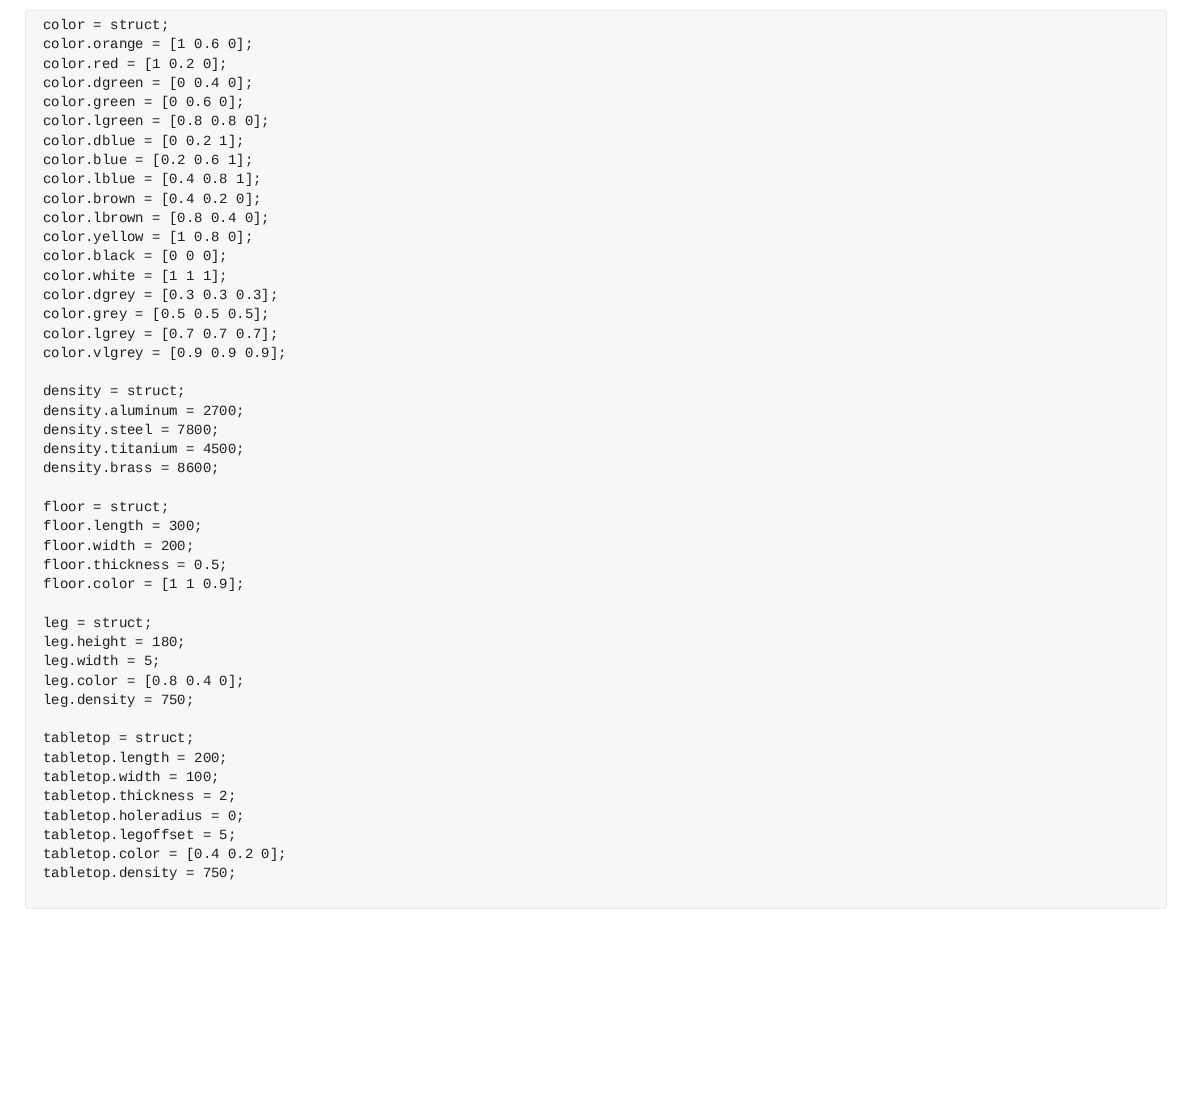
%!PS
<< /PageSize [1180 1117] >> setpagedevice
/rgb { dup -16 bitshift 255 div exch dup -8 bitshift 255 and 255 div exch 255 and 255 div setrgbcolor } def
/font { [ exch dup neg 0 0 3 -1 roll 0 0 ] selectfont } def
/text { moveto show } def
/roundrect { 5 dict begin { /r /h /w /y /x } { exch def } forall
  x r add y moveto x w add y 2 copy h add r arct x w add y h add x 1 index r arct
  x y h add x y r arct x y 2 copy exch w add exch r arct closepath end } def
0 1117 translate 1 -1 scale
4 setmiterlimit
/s1 { /LiberationMono-Regular 14 font 16#212121 rgb } def
16#FFFFFF rgb
0 0 1180 1117 rectfill
16#F7F7F7 rgb
25 10 1142 899 4 roundrect fill
16#E9E9E9 rgb
29 10 moveto 1163 10 lineto 1165 10 1167 12 1167 14 curveto 1167 35 lineto 25 35 lineto 25 14 lineto 25 12 27 10 29 10 curveto closepath 29 11 moveto 1163 11 lineto 1165 11 1166 12 1166 14 curveto 1166 35 lineto 26 35 lineto 26 14 lineto 26 12 27 11 29 11 curveto closepath eofill
s1
(color = struct;) 43 29 text
16#E9E9E9 rgb
1166 35 1 849 rectfill
25 35 1 849 rectfill
s1
(color.orange = [1 0.6 0];) 43 48 text
(color.red = [1 0.2 0];) 43 68 text
(color.dgreen = [0 0.4 0];) 43 87 text
(color.green = [0 0.6 0];) 43 106 text
(color.lgreen = [0.8 0.8 0];) 43 125 text
(color.dblue = [0 0.2 1];) 43 145 text
(color.blue = [0.2 0.6 1];) 43 164 text
(color.lblue = [0.4 0.8 1];) 43 183 text
(color.brown = [0.4 0.2 0];) 43 203 text
(color.lbrown = [0.8 0.4 0];) 43 222 text
(color.yellow = [1 0.8 0];) 43 241 text
(color.black = [0 0 0];) 43 260 text
(color.white = [1 1 1];) 43 280 text
(color.dgrey = [0.3 0.3 0.3];) 43 299 text
(color.grey = [0.5 0.5 0.5];) 43 318 text
(color.lgrey = [0.7 0.7 0.7];) 43 338 text
(color.vlgrey = [0.9 0.9 0.9];) 43 357 text
(density = struct;) 43 395 text
(density.aluminum = 2700;) 43 415 text
(density.steel = 7800;) 43 434 text
(density.titanium = 4500;) 43 453 text
(density.brass = 8600;) 43 472 text
(floor = struct;) 43 511 text
(floor.length = 300;) 43 530 text
(floor.width = 200;) 43 550 text
(floor.thickness = 0.5;) 43 569 text
(floor.color = [1 1 0.9];) 43 588 text
(leg = struct;) 43 627 text
(leg.height = 180;) 43 646 text
(leg.width = 5;) 43 665 text
(leg.color = [0.8 0.4 0];) 43 685 text
(leg.density = 750;) 43 704 text
(tabletop = struct;) 43 742 text
(tabletop.length = 200;) 43 762 text
(tabletop.width = 100;) 43 781 text
(tabletop.thickness = 2;) 43 800 text
(tabletop.holeradius = 0;) 43 820 text
(tabletop.legoffset = 5;) 43 839 text
(tabletop.color = [0.4 0.2 0];) 43 858 text
(tabletop.density = 750;) 43 877 text
16#E9E9E9 rgb
25 884 moveto 1167 884 lineto 1167 905 lineto 1167 907 1165 909 1163 909 curveto 29 909 lineto 27 909 25 907 25 905 curveto closepath 26 884 moveto 1166 884 lineto 1166 905 lineto 1166 907 1165 908 1163 908 curveto 29 908 lineto 27 908 26 907 26 905 curveto closepath eofill
showpage
